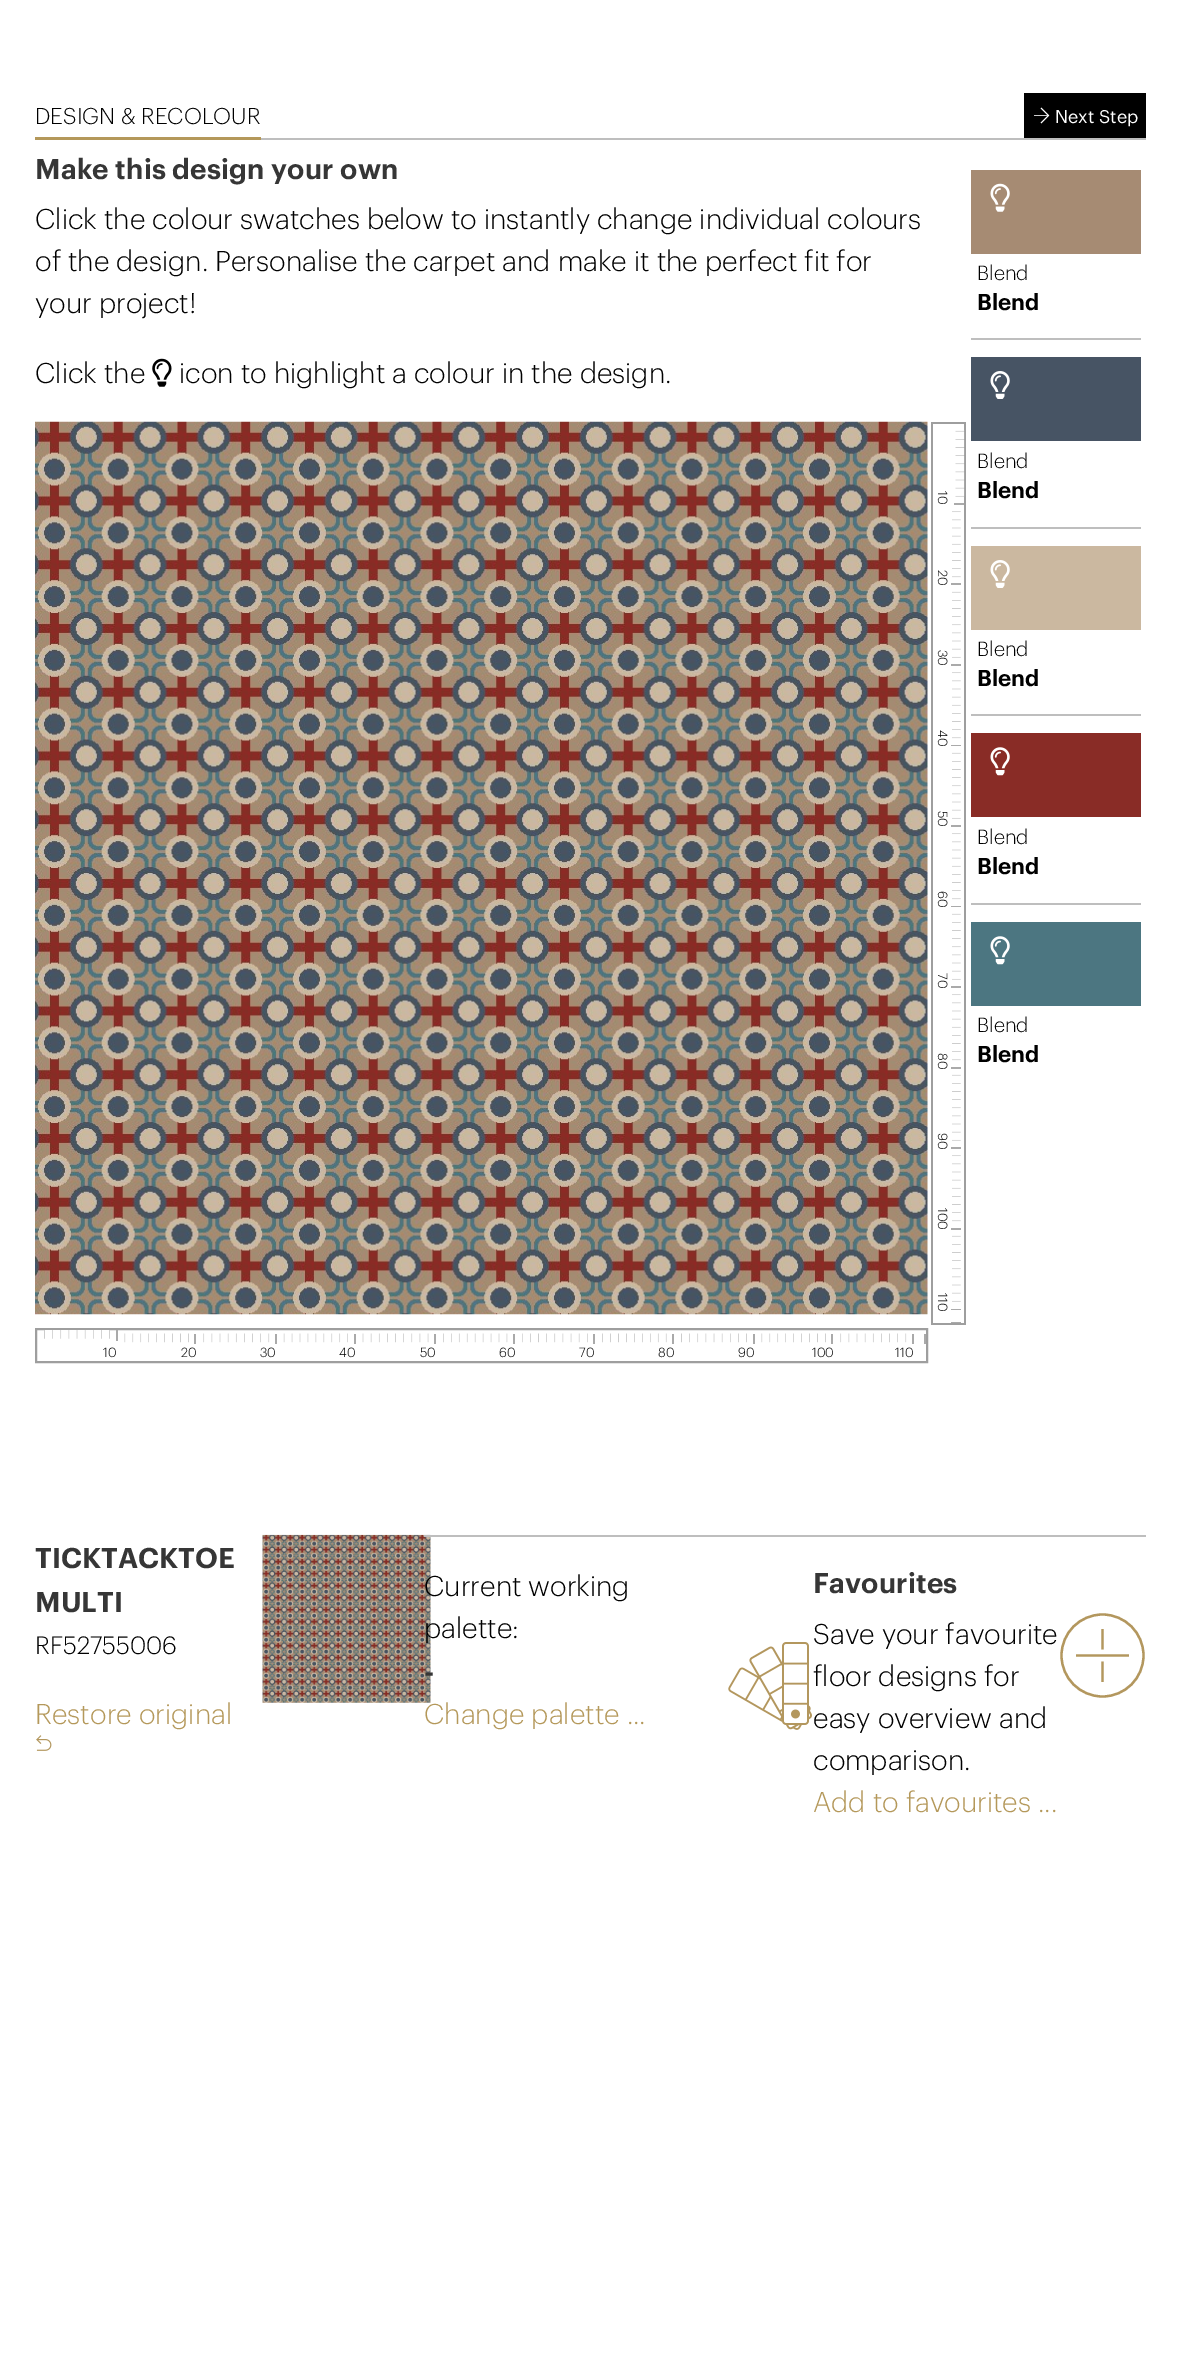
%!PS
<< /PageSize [1180 2356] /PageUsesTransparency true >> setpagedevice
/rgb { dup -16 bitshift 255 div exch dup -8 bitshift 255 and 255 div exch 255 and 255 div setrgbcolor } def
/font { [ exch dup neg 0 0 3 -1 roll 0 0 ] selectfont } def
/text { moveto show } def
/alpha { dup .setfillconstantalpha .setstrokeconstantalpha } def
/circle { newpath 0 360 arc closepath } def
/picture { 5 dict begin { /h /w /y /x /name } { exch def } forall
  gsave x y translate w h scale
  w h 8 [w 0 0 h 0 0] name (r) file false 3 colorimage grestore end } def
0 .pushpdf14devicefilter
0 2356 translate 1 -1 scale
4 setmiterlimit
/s1 { /Graphik-Light 22.4 font 16#000000 rgb } def
/s2 { /Graphik-Regular 18 font 16#FFFFFF rgb } def
/s3 { /Graphik-Light 28 font 16#000000 rgb } def
/s4 { /Graphik-Light 13 font 16#000000 rgb } def
/s5 { /Graphik-Light 20 font 16#000000 rgb } def
/s6 { /Graphik-SemiBold 22.4 font 16#000000 rgb } def
/s7 { /Graphik-SemiBold 28 font 16#363636 rgb } def
/s8 { /Graphik-Light 24.5 font 16#000000 rgb } def
/s9 { /Graphik-Light 28 font 16#B4985A rgb } def
16#FFFFFF rgb
0 0 1180 2356 rectfill
16#BEBEBE rgb
261 138 885 2 rectfill
16#B4985A rgb
35 137 226 3 rectfill
s1
(DESIGN & RECOLOUR) 35 124 text
1024 93 122 45 rectfill
16#FFFFFF rgb
0.8 setlinewidth
1041 108 moveto 1048.5 115.5 lineto 1041 123 lineto stroke
0.8 alpha
1034 115 15 1 rectfill
1 alpha
s2
(Next Step) 1055 123 text
/Graphik-SemiBold 28 font
16#363636 rgb
35 179 moveto 0.2 0 (Make this design your own) ashow
s3
(Click the colour swatches below to instantly change individual colours) 35 229 text
(of the design. Personalise the carpet and make it the perfect fit for) 35 271 text
(your project!) 35 313 text
(Click the) 35 383 text
(pic1.raw) 152 358 20 29 picture
(icon to highlight a colour in the design.) 179 383 text
(pic2.raw) 35 421 893 894 picture
16#9E9E9E rgb
1.8 setlinewidth
965 423 moveto 965 1324 lineto 932 1324 lineto 932 423 lineto closepath stroke
(pic3.raw) 955 430 10 67 picture
/Graphik-Light 13 font
16#000000 rgb
gsave 938 491 translate 90 rotate 0 0 moveto (10) show grestore
16#AAAAAA rgb
954 503 10 2 rectfill
(pic4.raw) 952 511 9 67 picture
16#000000 rgb
gsave 938 570 translate 90 rotate 0 0 moveto (20) show grestore
16#AAAAAA rgb
951 583 10 2 rectfill
(pic5.raw) 952 591 9 67 picture
16#000000 rgb
gsave 938 650 translate 90 rotate 0 0 moveto (30) show grestore
16#AAAAAA rgb
951 664 10 2 rectfill
(pic4.raw) 952 672 9 67 picture
16#000000 rgb
gsave 938 730 translate 90 rotate 0 0 moveto (40) show grestore
16#AAAAAA rgb
951 745 10 1 rectfill
(pic5.raw) 952 752 9 67 picture
16#000000 rgb
gsave 938 811 translate 90 rotate 0 0 moveto (50) show grestore
16#AAAAAA rgb
951 825 10 2 rectfill
(pic4.raw) 952 833 9 67 picture
16#000000 rgb
gsave 938 891 translate 90 rotate 0 0 moveto (60) show grestore
16#AAAAAA rgb
951 906 10 1 rectfill
(pic5.raw) 952 913 9 67 picture
16#000000 rgb
gsave 938 973 translate 90 rotate 0 0 moveto (70) show grestore
16#AAAAAA rgb
951 986 10 2 rectfill
(pic4.raw) 952 994 9 67 picture
16#000000 rgb
gsave 938 1053 translate 90 rotate 0 0 moveto (80) show grestore
16#AAAAAA rgb
951 1067 10 2 rectfill
(pic5.raw) 952 1074 9 67 picture
16#000000 rgb
gsave 938 1133 translate 90 rotate 0 0 moveto (90) show grestore
16#AAAAAA rgb
951 1147 10 2 rectfill
(pic4.raw) 952 1155 9 67 picture
16#000000 rgb
gsave 938 1208 translate 90 rotate 0 0 moveto (100) show grestore
16#AAAAAA rgb
951 1228 10 2 rectfill
(pic5.raw) 952 1235 9 67 picture
16#000000 rgb
gsave 938 1293 translate 90 rotate 0 0 moveto (110) show grestore
16#AAAAAA rgb
951 1309 10 1 rectfill
951 1322 10 1 rectfill
16#9E9E9E rgb
2 setlinewidth
36 1329 891 33 rectstroke
16#AAAAAA rgb
924 1334 2 10 rectfill
(pic6.raw) 44 1330 66 9 picture
116 1330 2 11 rectfill
s4
(10) 103 1357 text
(pic7.raw) 124 1333 65 10 picture
16#AAAAAA rgb
194 1334 2 10 rectfill
s4
(20) 181 1357 text
(pic8.raw) 203 1333 67 10 picture
16#AAAAAA rgb
275 1334 2 10 rectfill
s4
(30) 260 1357 text
(pic9.raw) 283 1333 65 10 picture
16#AAAAAA rgb
354 1334 2 10 rectfill
s4
(40) 339 1357 text
(pic10.raw) 362 1333 67 10 picture
16#AAAAAA rgb
434 1334 2 10 rectfill
s4
(50) 420 1357 text
(pic11.raw) 443 1333 65 10 picture
16#AAAAAA rgb
513 1334 2 10 rectfill
s4
(60) 499 1357 text
(pic12.raw) 522 1333 66 10 picture
16#AAAAAA rgb
593 1334 2 10 rectfill
s4
(70) 579 1357 text
(pic13.raw) 602 1333 65 10 picture
16#AAAAAA rgb
672 1334 2 10 rectfill
s4
(80) 658 1357 text
(pic14.raw) 681 1333 66 10 picture
16#AAAAAA rgb
753 1334 2 10 rectfill
s4
(90) 738 1357 text
(pic7.raw) 761 1333 65 10 picture
16#AAAAAA rgb
831 1334 2 10 rectfill
s4
(100) 812 1357 text
(pic8.raw) 840 1333 67 10 picture
16#AAAAAA rgb
912 1334 2 10 rectfill
s4
(110) 895 1357 text
16#A68B73 rgb
971 170 170 84 rectfill
(pic15.raw) 990 183 20 29 picture
s5
(Blend) 977 280 text
s6
(Blend) 977 310 text
16#BEBEBE rgb
971 338 170 2 rectfill
16#475464 rgb
971 357 170 84 rectfill
(pic16.raw) 990 371 20 28 picture
s5
(Blend) 977 468 text
s6
(Blend) 977 498 text
16#BEBEBE rgb
971 527 170 2 rectfill
16#CBB8A0 rgb
971 546 170 84 rectfill
(pic17.raw) 990 560 20 28 picture
s5
(Blend) 977 656 text
s6
(Blend) 977 686 text
16#BEBEBE rgb
971 714 170 2 rectfill
16#892C26 rgb
971 733 170 84 rectfill
(pic18.raw) 990 747 20 29 picture
s5
(Blend) 977 844 text
s6
(Blend) 977 874 text
16#BEBEBE rgb
971 903 170 2 rectfill
16#4C7681 rgb
971 922 170 84 rectfill
(pic19.raw) 990 936 20 29 picture
s5
(Blend) 977 1032 text
s6
(Blend) 977 1062 text
s7
(TICKTACKTOE) 35 1568 text
(MULTI) 35 1612 text
s8
(RF52755006) 35 1654 text
s9
(Restore original) 35 1724 text
(pic20.raw) 36 1735 16 16 picture
(pic21.raw) 262 1534 169 169 picture
16#BEBEBE rgb
424 1535 722 2 rectfill
s3
(Current working) 424 1596 text
(palette:) 424 1638 text
s7
(-) 424 1682 text
s9
(Change palette ...) 424 1724 text
(pic22.raw) 728 1642 84 88 picture
/Graphik-SemiBold 28 font
16#363636 rgb
813 1593 moveto 0.2 0 (Favourites) ashow
s3
(Save your favourite) 813 1644 text
(floor designs for) 813 1686 text
(easy overview and) 813 1728 text
(comparison.) 813 1770 text
s9
(Add to favourites ...) 813 1812 text
16#B3975E rgb
2.3 setlinewidth
1102.5 1655.5 41 circle stroke
1129 1655.5 moveto 1076 1655.5 lineto 1102.5 1661.5 moveto 1102.5 1682 lineto 1102.5 1649.5 moveto 1102.5 1629 lineto stroke
.poppdf14devicefilter showpage
